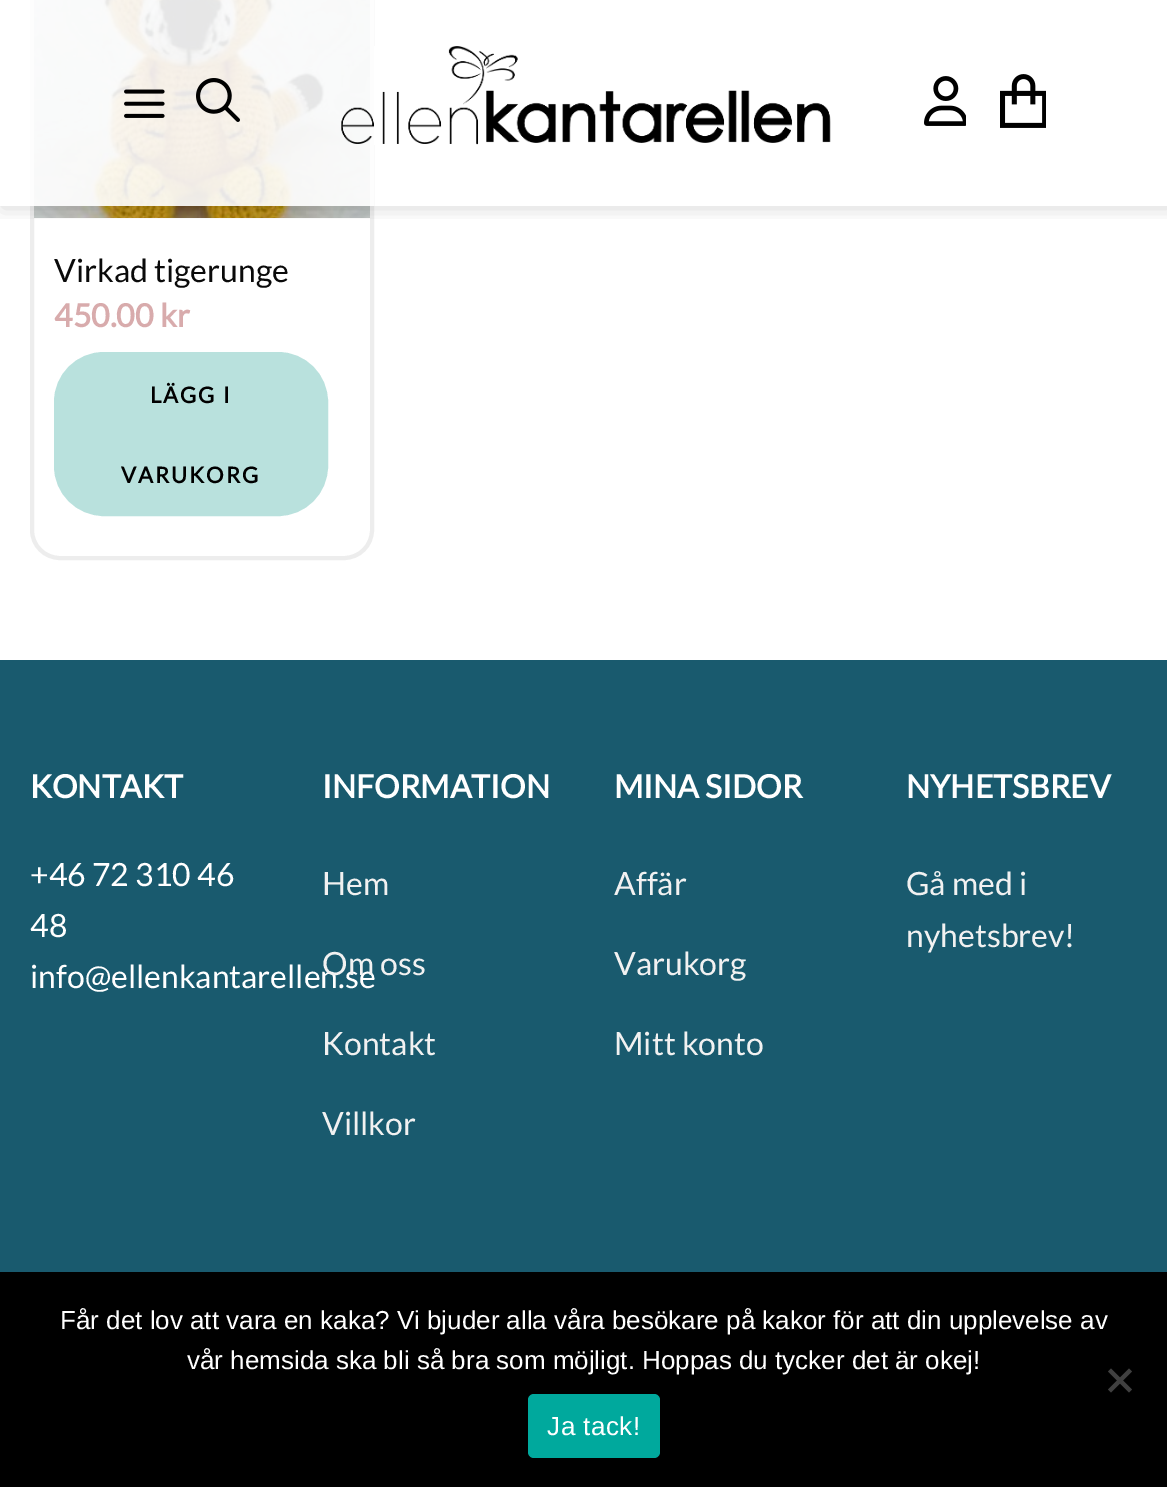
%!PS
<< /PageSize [1167 1487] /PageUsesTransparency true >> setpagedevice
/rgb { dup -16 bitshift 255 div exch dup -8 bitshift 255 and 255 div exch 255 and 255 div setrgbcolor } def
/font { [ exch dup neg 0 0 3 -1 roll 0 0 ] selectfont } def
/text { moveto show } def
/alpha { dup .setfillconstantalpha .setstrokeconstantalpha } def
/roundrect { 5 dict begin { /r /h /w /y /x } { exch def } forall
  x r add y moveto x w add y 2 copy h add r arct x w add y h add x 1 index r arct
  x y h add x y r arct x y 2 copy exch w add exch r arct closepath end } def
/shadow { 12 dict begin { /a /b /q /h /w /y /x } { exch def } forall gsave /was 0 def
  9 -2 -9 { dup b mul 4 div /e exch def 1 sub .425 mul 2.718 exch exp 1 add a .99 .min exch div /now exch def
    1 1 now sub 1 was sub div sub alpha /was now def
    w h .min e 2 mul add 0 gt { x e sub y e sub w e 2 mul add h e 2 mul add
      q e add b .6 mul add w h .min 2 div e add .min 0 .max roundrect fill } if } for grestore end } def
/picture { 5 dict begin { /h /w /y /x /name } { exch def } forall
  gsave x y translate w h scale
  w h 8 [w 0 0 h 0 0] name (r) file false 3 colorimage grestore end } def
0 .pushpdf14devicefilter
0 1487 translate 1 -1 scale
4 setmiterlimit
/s1 { /Lato-Regular 32 font 16#0A0A0A rgb } def
/s2 { /Lato-Bold 32 font 16#D8ABAC rgb } def
/s3 { /Lato-Bold 32 font 16#FFFFFF rgb } def
/s4 { /Lato-Regular 32 font 16#FFFFFF rgb } def
/s5 { /Lato-Regular 32 font 16#F1F1F1 rgb } def
/s6 { /LiberationSans-Regular 26 font 16#FFFFFF rgb } def
16#FFFFFF rgb
0 0 1167 1487 rectfill
16#EDEDED rgb
4 setlinewidth
32 -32 340 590 28 roundrect stroke
(pic6.raw) 34 0 336 218 picture
gsave
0 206 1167 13 rectclip
16#000000 rgb
2 2 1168 206 0 10 0.15 shadow
grestore
0.9 alpha
16#FFFFFF rgb
30 0 344 206 rectfill
1 alpha
(pic1.raw) 124 89 41 29 picture
(pic2.raw) 196 78 44 44 picture
(pic3.raw) 341 46 490 99 picture
(pic4.raw) 924 76 42 50 picture
(pic5.raw) 1000 74 46 54 picture
s1
(Virkad tigerunge) 54 282 text
s2
(450.00 kr) 54 327 text
16#B9E1DD rgb
55 353 272 162 49 roundrect gsave fill grestore
2 setlinewidth
stroke
/Lato-Bold 22 font
16#000000 rgb
150 403 moveto 2 0 (LÄGG I) ashow
121 483 moveto 2 0 (VARUKORG) ashow
16#195A6E rgb
0 660 1167 612 rectfill
s3
(KONTAKT) 30 798 text
s4
(+46 72 310 46) 30 886 text
(48) 30 937 text
(info@ellenkantarellen.se) 30 988 text
s3
(INFORMATION) 322 798 text
s5
(Hem) 322 895 text
(Om oss) 322 975 text
(Kontakt) 322 1055 text
(Villkor) 322 1135 text
s3
(MINA SIDOR) 614 798 text
s5
(Affär) 614 895 text
(Varukorg) 614 975 text
(Mitt konto) 614 1055 text
s3
(NYHETSBREV) 906 798 text
s5
(Gå med i) 906 895 text
(nyhetsbrev!) 906 947 text
16#000000 rgb
0 1272 1167 215 rectfill
s6
(Får det lov att vara en kaka? Vi bjuder alla våra besökare på kakor för att din upplevelse av) 60 1329 text
(vår hemsida ska bli så bra som möjligt. Hoppas du tycker det är okej!) 187 1369 text
16#404040 rgb
1129 1368.5 moveto 1132 1371.5 lineto 1111 1392.5 lineto 1108 1389.5 lineto closepath fill
1108 1371.5 moveto 1111 1368.5 lineto 1132 1389.5 lineto 1129 1392.5 lineto closepath fill
16#00A99D rgb
528 1394 132 64 6 roundrect fill
16#FFFFFF rgb
547 1435 moveto 0.5 0 (Ja tack!) ashow
.poppdf14devicefilter showpage
